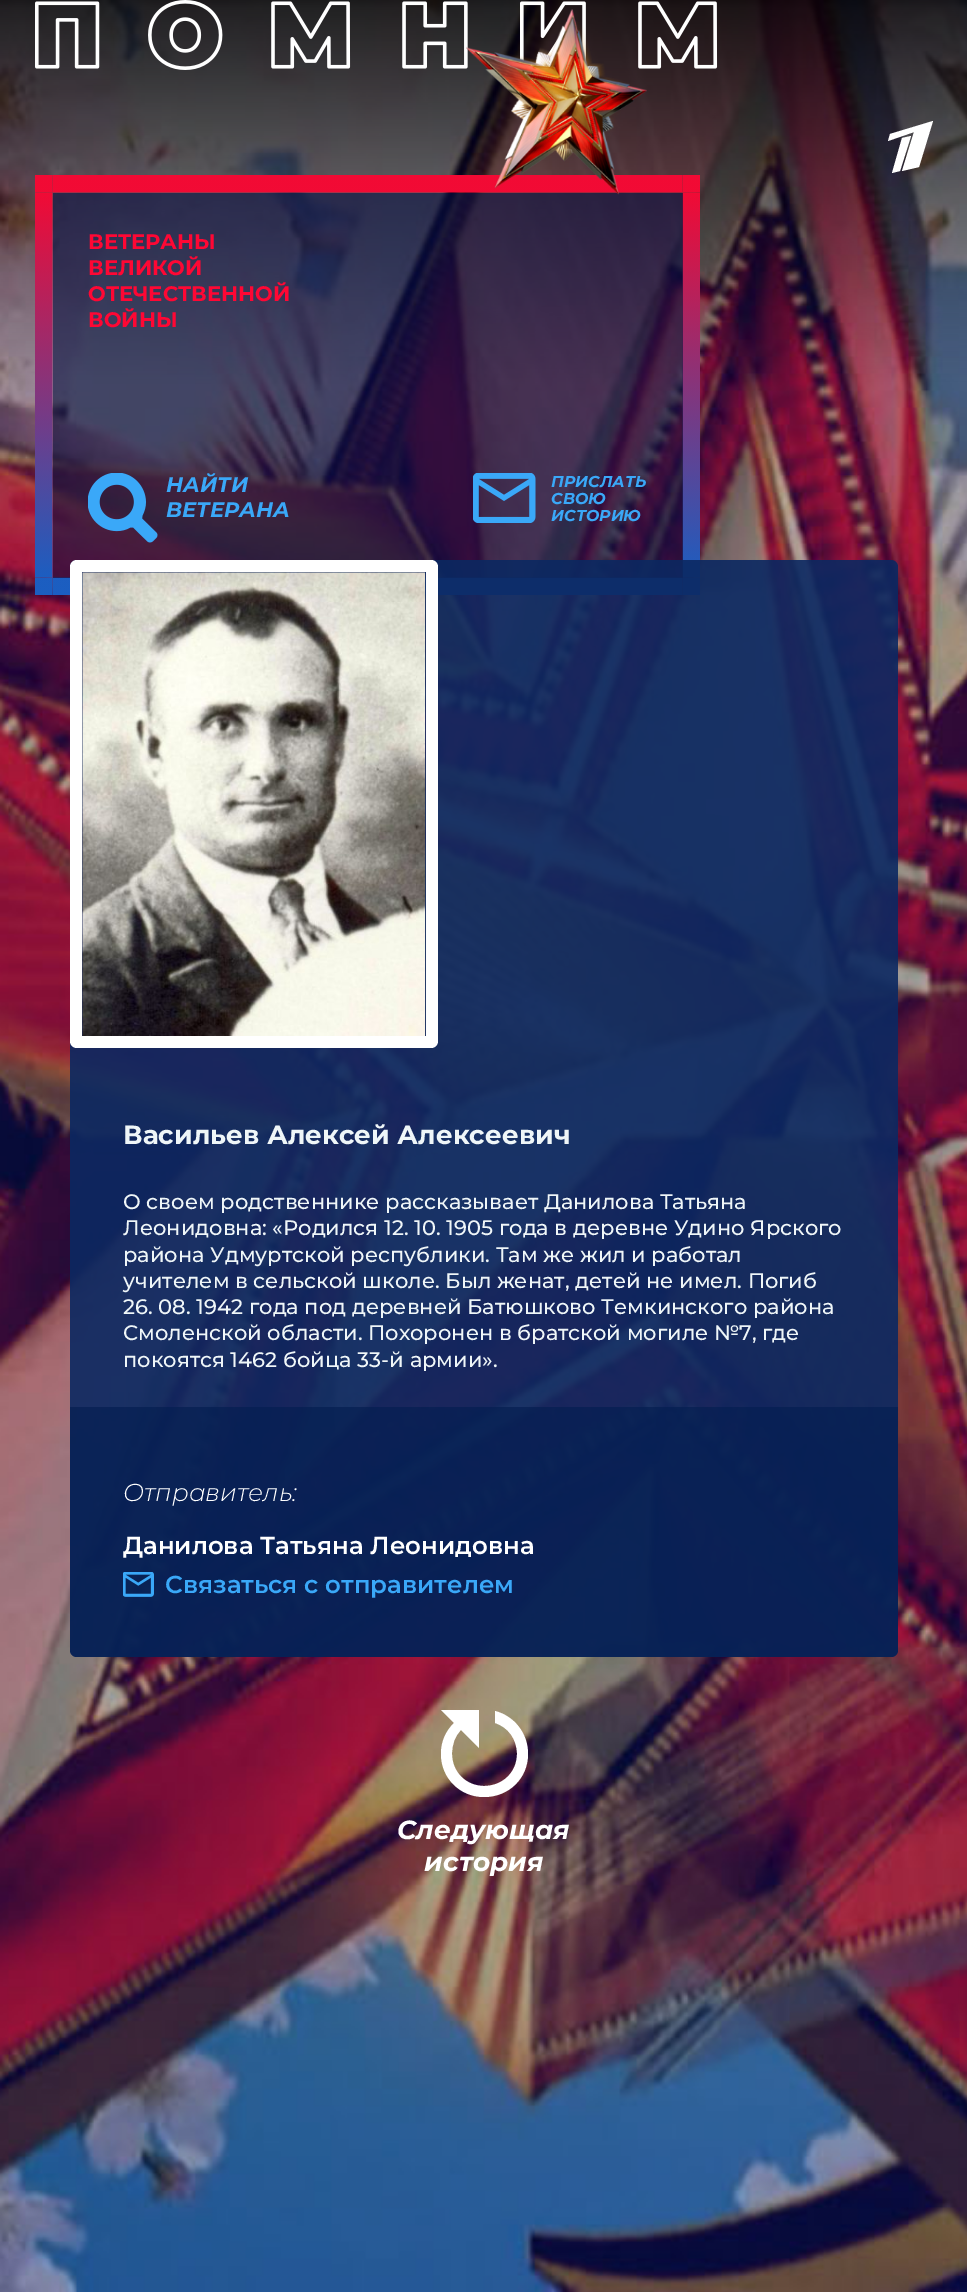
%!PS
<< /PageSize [967 2292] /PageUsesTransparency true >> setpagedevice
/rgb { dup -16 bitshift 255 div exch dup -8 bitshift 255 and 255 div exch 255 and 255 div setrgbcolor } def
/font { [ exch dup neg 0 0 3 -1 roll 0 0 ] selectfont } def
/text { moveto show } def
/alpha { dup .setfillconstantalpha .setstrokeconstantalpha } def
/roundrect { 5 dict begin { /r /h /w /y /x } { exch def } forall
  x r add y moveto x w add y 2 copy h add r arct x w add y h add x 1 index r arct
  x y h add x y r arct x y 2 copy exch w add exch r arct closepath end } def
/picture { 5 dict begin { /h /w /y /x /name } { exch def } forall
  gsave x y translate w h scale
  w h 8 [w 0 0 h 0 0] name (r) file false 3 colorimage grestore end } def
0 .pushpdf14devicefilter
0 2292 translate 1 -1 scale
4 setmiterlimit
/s1 { /Montserrat-Bold 21 font 16#FF0734 rgb } def
/s2 { /Montserrat-BoldItalic 21 font 16#3AA8F8 rgb } def
/s3 { /Montserrat-BoldItalic 15.75 font 16#3AA8F8 rgb } def
/s4 { /Montserrat-Bold 26.25 font 16#EFF6F8 rgb } def
/s5 { /Montserrat-Medium 21 font 16#EFF6F8 rgb } def
/s6 { /Montserrat-LightItalic 24.5 font 16#FFFFFF rgb } def
/s7 { /Montserrat-SemiBold 24.5 font 16#FFFFFF rgb } def
/s8 { /Montserrat-SemiBold 24.5 font 16#3AA8F8 rgb } def
/s9 { /Montserrat-BoldItalic 26.25 font 16#FFFFFF rgb } def
16#FFFFFF rgb
0 0 967 2292 rectfill
(pic1.raw) 0 0 967 2292 picture
(pic2.raw) 35 0 683 70 picture
(pic4.raw) 35 175 665 420 picture
0.6 alpha
16#070D40 rgb
53 193 630 385 rectfill
1 alpha
(pic3.raw) 466 9 181 186 picture
16#FFFFFF rgb
888 141 moveto 890 134 lineto 933 121 lineto 919 167 lineto 902 171 lineto 914 132 lineto closepath 892 173 moveto 902 138 lineto 911 136 lineto 900 171 lineto closepath eofill
s1
(ВЕТЕРАНЫ) 88 249 text
(ВЕЛИКОЙ) 88 275 text
(ОТЕЧЕСТВЕННОЙ) 88 301 text
(ВОЙНЫ) 88 327 text
(pic5.raw) 88 473 70 70 picture
s2
(НАЙТИ) 166 492 text
(ВЕТЕРАНА) 166 517 text
(pic6.raw) 473 473 63 50 picture
s3
(ПРИСЛАТЬ) 551 487 text
(СВОЮ) 551 504 text
(ИСТОРИЮ) 551 521 text
0.9 alpha
16#0B2861 rgb
70 560 828 1097 7 roundrect fill
1 alpha
16#FFFFFF rgb
77 560 moveto 73 560 70 563 70 567 curveto 70 1041 lineto 70 1045 73 1048 77 1048 curveto 431 1048 lineto 435 1048 438 1045 438 1041 curveto 438 567 lineto 438 563 435 560 431 560 curveto closepath 82 572 moveto 82 1036 lineto 426 1036 lineto 426 572 lineto closepath eofill
(pic7.raw) 82 572 344 464 picture
s4
(Васильев Алексей Алексеевич) 123 1144 text
s5
(О своем родственнике рассказывает Данилова Татьяна) 123 1209 text
(Леонидовна: «Родился 12. 10. 1905 года в деревне Удино Ярского) 123 1235 text
(района Удмуртской республики. Там же жил и работал) 123 1262 text
(учителем в сельской школе. Был женат, детей не имел. Погиб) 123 1288 text
(26. 08. 1942 года под деревней Батюшково Темкинского района) 123 1314 text
(Смоленской области. Похоронен в братской могиле №7, где) 123 1340 text
(покоятся 1462 бойца 33-й армии».) 123 1367 text
0.7 alpha
16#041E51 rgb
70 1407 moveto 898 1407 lineto 898 1650 lineto 898 1654 895 1657 891 1657 curveto 77 1657 lineto 73 1657 70 1654 70 1650 curveto closepath fill
1 alpha
s6
(Отправитель:) 123 1501 text
s7
(Данилова Татьяна Леонидовна) 123 1554 text
(pic8.raw) 123 1572 31 25 picture
s8
(Связаться с отправителем) 165 1593 text
16#FFFFFF rgb
454 1723 moveto 446 1731 441 1741 441 1754 curveto 441 1778 460 1797 484 1797 curveto 509 1797 528 1778 528 1754 curveto 528 1733 514 1716 495 1711 curveto 495 1723 lineto 508 1727 517 1739 517 1754 curveto 517 1772 503 1786 484 1786 curveto 466 1786 452 1772 452 1754 curveto 452 1744 455 1736 461 1730 curveto 479 1748 lineto 479 1710 lineto 441 1710 lineto closepath fill
s9
(Следующая) 397 1839 text
(история) 424 1871 text
.poppdf14devicefilter showpage
